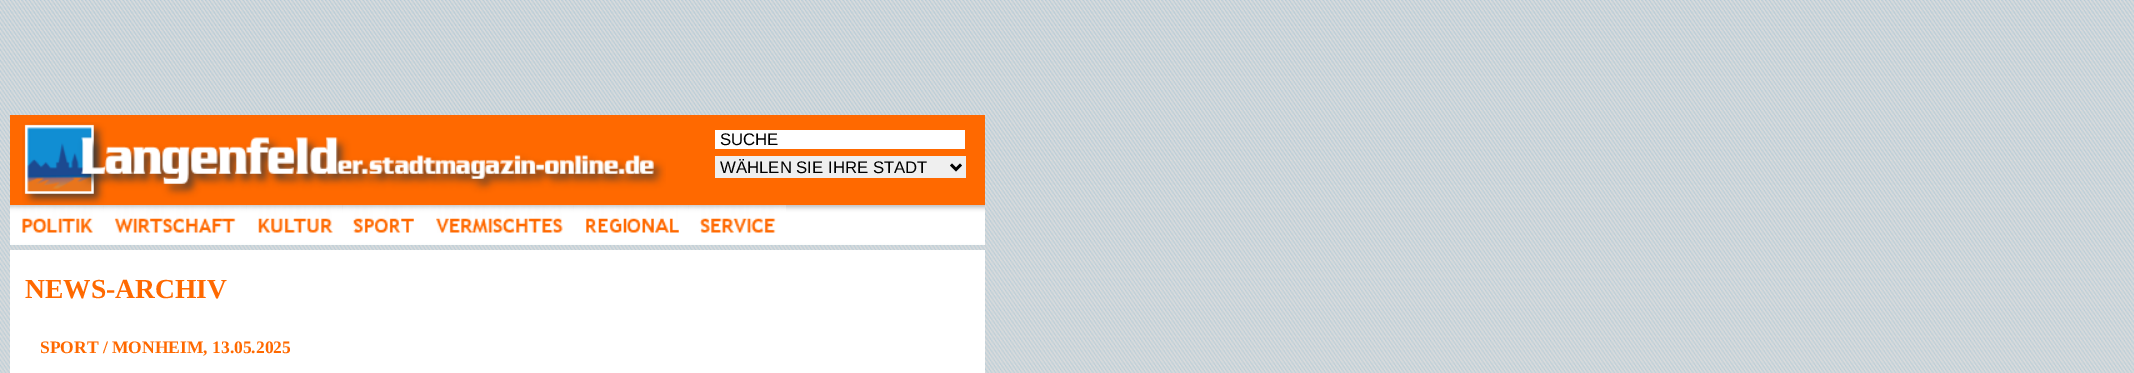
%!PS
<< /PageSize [2134 373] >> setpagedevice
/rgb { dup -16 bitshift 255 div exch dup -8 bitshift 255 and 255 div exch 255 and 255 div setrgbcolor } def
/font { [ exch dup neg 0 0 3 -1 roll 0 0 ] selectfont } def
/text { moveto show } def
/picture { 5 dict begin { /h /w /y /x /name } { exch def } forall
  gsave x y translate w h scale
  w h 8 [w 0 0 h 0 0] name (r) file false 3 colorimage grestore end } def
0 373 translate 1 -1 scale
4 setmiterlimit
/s1 { /LiberationSans-Regular 16.75 font 16#000000 rgb } def
/s2 { /LiberationSerif-Bold 27.5 font 16#FF6900 rgb } def
/s3 { /LiberationSerif-Bold 17.5 font 16#FF6900 rgb } def
16#FFFFFF rgb
0 0 2134 373 rectfill
(pic1.raw) 0 0 2134 373 picture
16#FF6900 rgb
10 115 975 90 rectfill
(pic2.raw) 22 122 644 83 picture
16#FFFFFF rgb
715 130 250 19 rectfill
s1
(SUCHE) 720 145 text
16#EFEFEF rgb
715 156 251 22 rectfill
16#000000 rgb
2.5 setlinewidth
951 164.5 moveto 956 169.5 lineto 961 164.5 lineto stroke
(WÄHLEN SIE IHRE STADT) 720 173 text
(pic3.raw) 10 205 975 40 picture
(pic4.raw) 10 205 94 28 picture
(pic5.raw) 104 205 142 28 picture
(pic6.raw) 246 205 97 28 picture
(pic7.raw) 343 205 82 28 picture
(pic8.raw) 425 205 149 28 picture
(pic9.raw) 574 205 115 28 picture
(pic10.raw) 689 205 97 28 picture
16#FFFFFF rgb
10 250 975 123 rectfill
s2
(NEWS-ARCHIV) 25 298 text
s3
(SPORT / MONHEIM, 13.05.2025) 40 353 text
showpage
